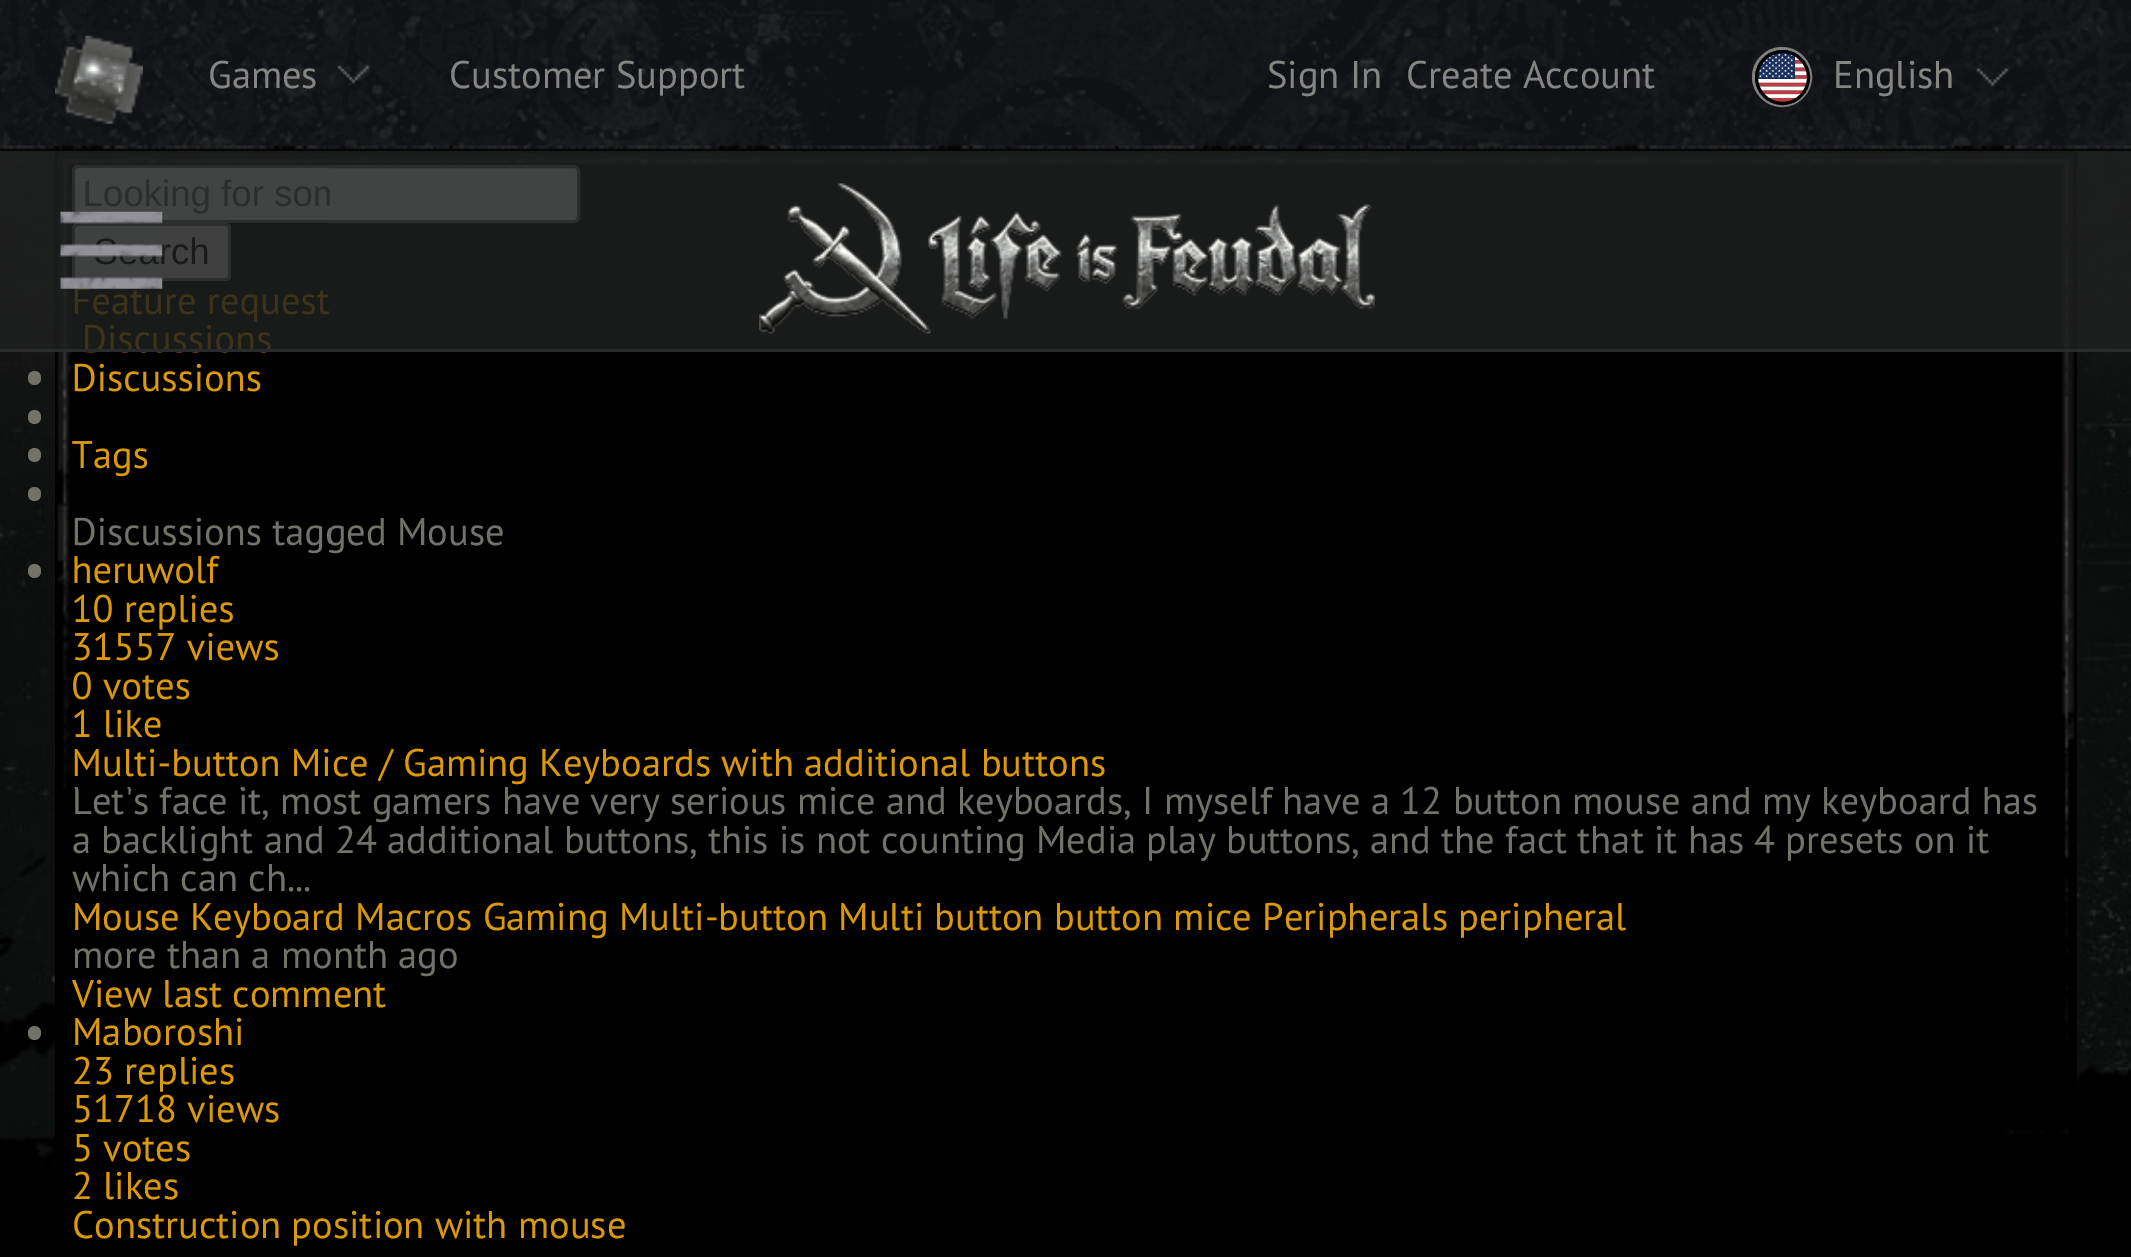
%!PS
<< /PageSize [2131 1257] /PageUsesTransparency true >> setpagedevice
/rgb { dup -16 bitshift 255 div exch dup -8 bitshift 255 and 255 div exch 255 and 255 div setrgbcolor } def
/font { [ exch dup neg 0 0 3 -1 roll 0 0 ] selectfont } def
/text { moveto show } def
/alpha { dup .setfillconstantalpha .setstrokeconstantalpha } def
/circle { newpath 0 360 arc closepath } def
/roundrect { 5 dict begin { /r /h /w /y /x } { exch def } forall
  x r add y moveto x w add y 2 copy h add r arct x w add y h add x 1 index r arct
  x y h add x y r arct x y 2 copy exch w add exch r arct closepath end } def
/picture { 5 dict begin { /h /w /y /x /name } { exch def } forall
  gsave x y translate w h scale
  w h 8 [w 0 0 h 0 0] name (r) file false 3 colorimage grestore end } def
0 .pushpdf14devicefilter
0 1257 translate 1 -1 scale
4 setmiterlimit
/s1 { /PTSans-Regular 38.5 font 16#858683 rgb } def
/s2 { /PTSans-Regular 38.5 font 16#DB9909 rgb } def
/s3 { /PTSans-Regular 38.5 font 16#72726A rgb } def
16#000000 rgb
0 0 2131 1257 rectfill
(pic1.raw) 0 0 2131 151 picture
(pic2.raw) 55 35 88 89 picture
s1
(Games) 208 88 text
(pic3.raw) 337 65 33 19 picture
(Customer Support) 449 88 text
(Sign In) 1267 88 text
(Create Account) 1406 88 text
16#808080 rgb
3 setlinewidth
1782 77 28.5 circle stroke
(pic4.raw) 1757 52 50 50 picture
16#000000 rgb
1782.5 77.5 26 circle stroke
s1
(English) 1833 88 text
(pic5.raw) 1976 68 33 19 picture
(pic8.raw) 0 151 2131 1044 picture
16#000000 rgb
58 151 2016 1044 rectfill
(pic9.raw) 58 152 2016 13 picture
2074 151 3 939 rectfill
55 151 3 1012 rectfill
16#FFFFFF rgb
73.5 166.5 505 55 4.5 roundrect gsave fill grestore
16#767676 rgb
stroke
16#EFEFEF rgb
73.5 224.5 156 55 4.5 roundrect gsave fill grestore
16#767676 rgb
stroke
s2
(Discussions) 72 391 text
(Tags) 72 468 text
s3
(Discussions tagged Mouse) 72 545 text
s2
(heruwolf) 72 583 text
(10 replies) 72 622 text
(31557 views) 72 660 text
(0 votes) 72 699 text
(1 like) 72 737 text
(Multi-button Mice / Gaming Keyboards with additional buttons) 72 776 text
s3
(Let's face it, most gamers have very serious mice and keyboards, I myself have a 12 button mouse and my keyboard has) 72 814 text
(pic10.raw) 57 153 273 636 picture
(a backlight and 24 additional buttons, this is not counting Media play buttons, and the fact that it has 4 presets on it) 72 853 text
(pic11.raw) 1801 153 274 981 picture
0.84 alpha
16#1E1F1F rgb
0 151 2131 198 rectfill
1 alpha
16#292B2A rgb
0 349 2131 3 rectfill
(pic6.raw) 60 211 103 78 picture
(pic7.raw) 759 183 616 151 picture
16#72726A rgb
28 371 13 14 6.5 roundrect fill
28 410 13 14 6.5 roundrect fill
28 448 13 14 6.5 roundrect fill
28 487 13 14 6.5 roundrect fill
28 564 13 14 6.5 roundrect fill
(which can ch...) 72 891 text
s2
(Mouse Keyboard Macros Gaming Multi-button Multi button button mice Peripherals peripheral) 72 930 text
s3
(more than a month ago) 72 968 text
s2
(View last comment) 72 1007 text
16#72726A rgb
28 1026 13 14 6.5 roundrect fill
s2
(Maboroshi) 72 1045 text
(23 replies) 72 1084 text
(51718 views) 72 1122 text
(5 votes) 72 1161 text
(2 likes) 72 1199 text
(Construction position with mouse) 72 1238 text
.poppdf14devicefilter showpage
